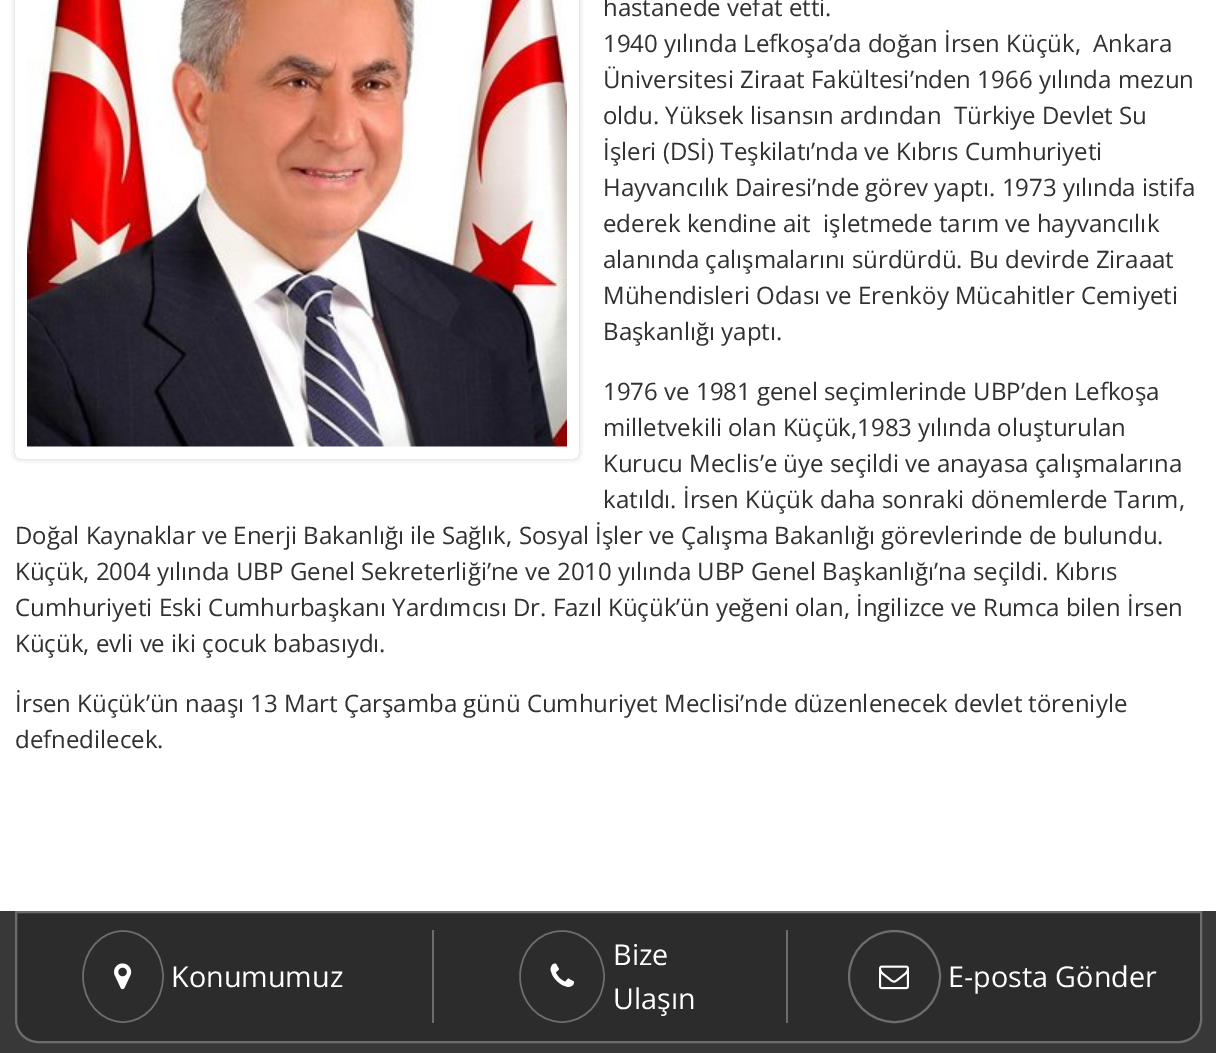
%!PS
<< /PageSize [1216 1053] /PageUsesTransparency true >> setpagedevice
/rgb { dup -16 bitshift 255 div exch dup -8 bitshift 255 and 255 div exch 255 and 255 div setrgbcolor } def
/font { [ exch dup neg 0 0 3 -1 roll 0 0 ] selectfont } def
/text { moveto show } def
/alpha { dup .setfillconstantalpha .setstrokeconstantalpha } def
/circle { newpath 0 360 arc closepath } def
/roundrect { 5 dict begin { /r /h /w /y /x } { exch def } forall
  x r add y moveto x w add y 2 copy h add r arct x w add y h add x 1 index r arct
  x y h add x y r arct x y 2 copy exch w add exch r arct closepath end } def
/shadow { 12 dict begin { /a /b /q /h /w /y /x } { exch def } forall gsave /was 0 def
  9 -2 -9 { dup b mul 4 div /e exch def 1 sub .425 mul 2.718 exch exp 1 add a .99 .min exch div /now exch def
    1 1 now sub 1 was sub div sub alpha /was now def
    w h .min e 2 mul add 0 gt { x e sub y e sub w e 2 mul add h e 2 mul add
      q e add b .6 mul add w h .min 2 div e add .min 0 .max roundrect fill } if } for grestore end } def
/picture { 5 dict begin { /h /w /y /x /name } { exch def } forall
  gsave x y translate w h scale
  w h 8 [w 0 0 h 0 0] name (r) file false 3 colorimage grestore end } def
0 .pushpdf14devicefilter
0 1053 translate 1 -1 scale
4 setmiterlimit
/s1 { /OpenSans-Regular 24 font 16#313131 rgb } def
/s2 { /OpenSans-Regular 28.75 font 16#FFFFFF rgb } def
16#FFFFFF rgb
0 0 1216 1053 rectfill
gsave
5 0 moveto 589 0 lineto 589 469 lineto 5 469 lineto closepath 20 -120 moveto 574 -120 lineto 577 -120 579 -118 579 -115 curveto 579 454 lineto 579 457 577 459 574 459 curveto 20 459 lineto 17 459 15 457 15 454 curveto 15 -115 lineto 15 -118 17 -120 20 -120 curveto closepath eoclip newpath
16#888888 rgb
15 -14 564 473 5 3 0.4 shadow
grestore
(pic1.raw) 27 0 540 447 picture
s1
(hastanede vefat etti.) 603 16 text
(1940 yılında Lefkoşa’da doğan İrsen Küçük,  Ankara) 603 52 text
(Üniversitesi Ziraat Fakültesi’nden 1966 yılında mezun) 603 88 text
(oldu. Yüksek lisansın ardından  Türkiye Devlet Su) 603 124 text
(İşleri \(DSİ\) Teşkilatı’nda ve Kıbrıs Cumhuriyeti) 603 160 text
(Hayvancılık Dairesi’nde görev yaptı. 1973 yılında istifa) 603 196 text
(ederek kendine ait  işletmede tarım ve hayvancılık) 603 232 text
(alanında çalışmalarını sürdürdü. Bu devirde Ziraaat) 603 268 text
(Mühendisleri Odası ve Erenköy Mücahitler Cemiyeti) 603 304 text
(Başkanlığı yaptı.) 603 340 text
(1976 ve 1981 genel seçimlerinde UBP’den Lefkoşa) 603 400 text
(milletvekili olan Küçük,1983 yılında oluşturulan) 603 436 text
(Kurucu Meclis’e üye seçildi ve anayasa çalışmalarına) 603 472 text
(katıldı. İrsen Küçük daha sonraki dönemlerde Tarım,) 603 508 text
(Doğal Kaynaklar ve Enerji Bakanlığı ile Sağlık, Sosyal İşler ve Çalışma Bakanlığı görevlerinde de bulundu.) 15 544 text
(Küçük, 2004 yılında UBP Genel Sekreterliği’ne ve 2010 yılında UBP Genel Başkanlığı’na seçildi. Kıbrıs) 15 580 text
(Cumhuriyeti Eski Cumhurbaşkanı Yardımcısı Dr. Fazıl Küçük’ün yeğeni olan, İngilizce ve Rumca bilen İrsen) 15 616 text
(Küçük, evli ve iki çocuk babasıydı.) 15 652 text
(İrsen Küçük’ün naaşı 13 Mart Çarşamba günü Cumhuriyet Meclisi’nde düzenlenecek devlet töreniyle) 15 712 text
(defnedilecek.) 15 748 text
16#383838 rgb
0 911 1216 142 rectfill
16#2C2C2C rgb
16 912 moveto 1201 912 lineto 1201 1020 lineto 1201 1032 1191 1042 1179 1042 curveto 38 1042 lineto 26 1042 16 1032 16 1020 curveto closepath gsave fill grestore
16#6D6D6D rgb
2 setlinewidth
stroke
432 930 2 93 rectfill
1.5 setlinewidth
123 931 moveto 145 931 163 951 163 976.5 curveto 163 1002 145 1022 123 1022 curveto 101 1022 83 1002 83 976.5 curveto 83 951 101 931 123 931 curveto closepath stroke
(pic2.raw) 114 963 18 27 picture
s2
(Konumumuz) 171 987 text
16#6D6D6D rgb
786 930 2 93 rectfill
562 931 moveto 585 931 604 951 604 976.5 curveto 604 1002 585 1022 562 1022 curveto 538.5 1022 520 1002 520 976.5 curveto 520 951 538.5 931 562 931 curveto closepath stroke
(pic3.raw) 550 963 24 24 picture
s2
(Bize) 613 965 text
(Ulaşın) 613 1009 text
16#6D6D6D rgb
2 setlinewidth
894.5 976.5 45.5 circle stroke
(pic4.raw) 879 965 30 25 picture
s2
(E-posta Gönder) 948 987 text
.poppdf14devicefilter showpage
